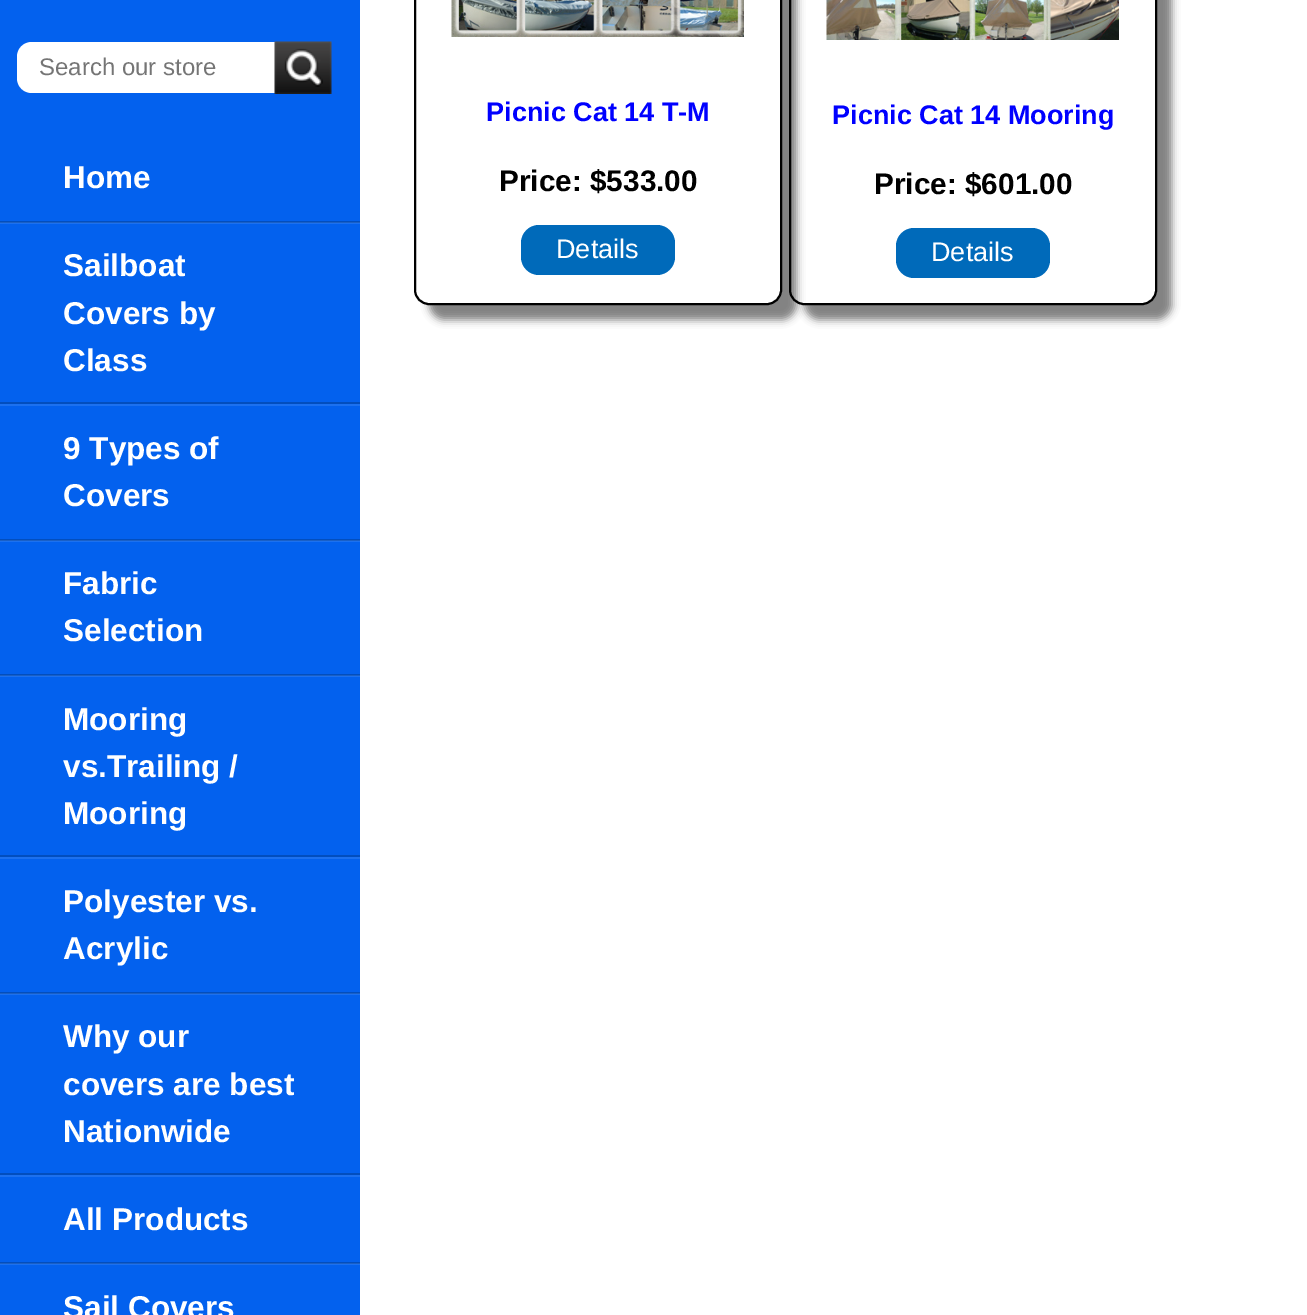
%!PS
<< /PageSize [1307 1315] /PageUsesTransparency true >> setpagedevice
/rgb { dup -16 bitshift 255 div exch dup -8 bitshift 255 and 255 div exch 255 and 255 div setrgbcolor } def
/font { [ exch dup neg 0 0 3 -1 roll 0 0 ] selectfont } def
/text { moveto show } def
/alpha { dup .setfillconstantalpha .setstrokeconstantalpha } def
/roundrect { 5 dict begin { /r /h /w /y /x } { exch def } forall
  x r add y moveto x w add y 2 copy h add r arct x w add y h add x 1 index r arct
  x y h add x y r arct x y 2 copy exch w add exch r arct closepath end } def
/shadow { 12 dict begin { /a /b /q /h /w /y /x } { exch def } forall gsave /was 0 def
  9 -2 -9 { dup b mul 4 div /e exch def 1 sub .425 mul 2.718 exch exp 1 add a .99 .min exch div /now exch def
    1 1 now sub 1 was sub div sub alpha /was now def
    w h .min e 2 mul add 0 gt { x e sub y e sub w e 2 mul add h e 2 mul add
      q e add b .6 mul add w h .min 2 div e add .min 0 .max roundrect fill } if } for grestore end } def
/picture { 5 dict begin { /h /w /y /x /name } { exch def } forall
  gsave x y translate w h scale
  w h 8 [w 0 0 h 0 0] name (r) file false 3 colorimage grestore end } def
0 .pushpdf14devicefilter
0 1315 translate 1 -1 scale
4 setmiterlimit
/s1 { /LiberationSans-Regular 24 font 16#757575 rgb } def
/s2 { /LiberationSans-Bold 31.5 font 16#FFFFFF rgb } def
/s3 { /LiberationSans-Bold 27 font 16#0000FF rgb } def
/s4 { /LiberationSans-Bold 29.75 font 16#000000 rgb } def
/s5 { /LiberationSans-Regular 27 font 16#FFFFFF rgb } def
16#0361EE rgb
0 0 1307 1315 rectfill
16#1C71F0 rgb
0 1264 360 1 rectfill
0 994 360 1 rectfill
0 676 360 1 rectfill
0 541 360 1 rectfill
0 223 360 1 rectfill
16#FFFFFF rgb
32 42 moveto 275 42 lineto 275 93 lineto 32 93 lineto 23.5 93 17 86.5 17 78 curveto 17 57 lineto 17 48.5 23.5 42 32 42 curveto closepath fill
s1
(Search our store) 39 75 text
(pic1.raw) 274 41 58 53 picture
16#024EBE rgb
0 221 360 1 rectfill
16#1B60C5 rgb
0 222 360 1 rectfill
s2
(Home) 63 188 text
16#024EBE rgb
0 402 360 2 rectfill
s2
(Sailboat) 63 276 text
(Covers by) 63 324 text
(Class) 63 371 text
16#1C71F0 rgb
0 404 360 2 rectfill
16#024EBE rgb
0 539 360 1 rectfill
16#1B60C5 rgb
0 540 360 1 rectfill
s2
(9 Types of) 63 459 text
(Covers) 63 506 text
16#024EBE rgb
0 674 360 1 rectfill
16#1B60C5 rgb
0 675 360 1 rectfill
s2
(Fabric) 63 594 text
(Selection) 63 641 text
16#024EBE rgb
0 855 360 2 rectfill
s2
(Mooring) 63 730 text
(vs.Trailing /) 63 777 text
(Mooring) 63 824 text
16#1C71F0 rgb
0 857 360 2 rectfill
16#024EBE rgb
0 992 360 1 rectfill
16#1B60C5 rgb
0 993 360 1 rectfill
s2
(Polyester vs.) 63 912 text
(Acrylic) 63 959 text
16#024EBE rgb
0 1173 360 2 rectfill
s2
(Why our) 63 1047 text
(covers are best) 63 1095 text
(Nationwide) 63 1142 text
16#1C71F0 rgb
0 1175 360 2 rectfill
16#024EBE rgb
0 1262 360 1 rectfill
16#1B60C5 rgb
0 1263 360 1 rectfill
s2
(All Products) 63 1230 text
(Sail Covers) 63 1318 text
360 0 947 1315 rectfill
gsave
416 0 moveto 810 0 lineto 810 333 lineto 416 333 lineto closepath 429 -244 moveto 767 -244 lineto 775.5 -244 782 -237.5 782 -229 curveto 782 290 lineto 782 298.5 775.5 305 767 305 curveto 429 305 lineto 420.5 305 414 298.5 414 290 curveto 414 -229 lineto 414 -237.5 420.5 -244 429 -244 curveto closepath eoclip newpath
16#808080 rgb
429 -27 368 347 15 4 1 shadow
grestore
16#000000 rgb
2 setlinewidth
415 -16 366 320 14 roundrect stroke
(pic2.raw) 451 0 293 37 picture
s3
(Picnic Cat 14 T-M) 486 121 text
s4
(Price: $533.00) 499 191 text
16#006ABA rgb
521 225 154 50 18 roundrect fill
s5
(Details) 556 258 text
gsave
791 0 moveto 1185 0 lineto 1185 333 lineto 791 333 lineto closepath 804 -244 moveto 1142 -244 lineto 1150.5 -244 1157 -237.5 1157 -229 curveto 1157 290 lineto 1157 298.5 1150.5 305 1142 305 curveto 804 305 lineto 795.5 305 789 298.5 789 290 curveto 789 -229 lineto 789 -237.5 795.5 -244 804 -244 curveto closepath eoclip newpath
16#808080 rgb
804 -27 368 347 15 4 1 shadow
grestore
16#000000 rgb
790 -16 366 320 14 roundrect stroke
(pic3.raw) 826 0 293 40 picture
s3
(Picnic Cat 14 Mooring) 832 124 text
s4
(Price: $601.00) 874 194 text
16#006ABA rgb
896 228 154 50 18 roundrect fill
s5
(Details) 931 261 text
.poppdf14devicefilter showpage
